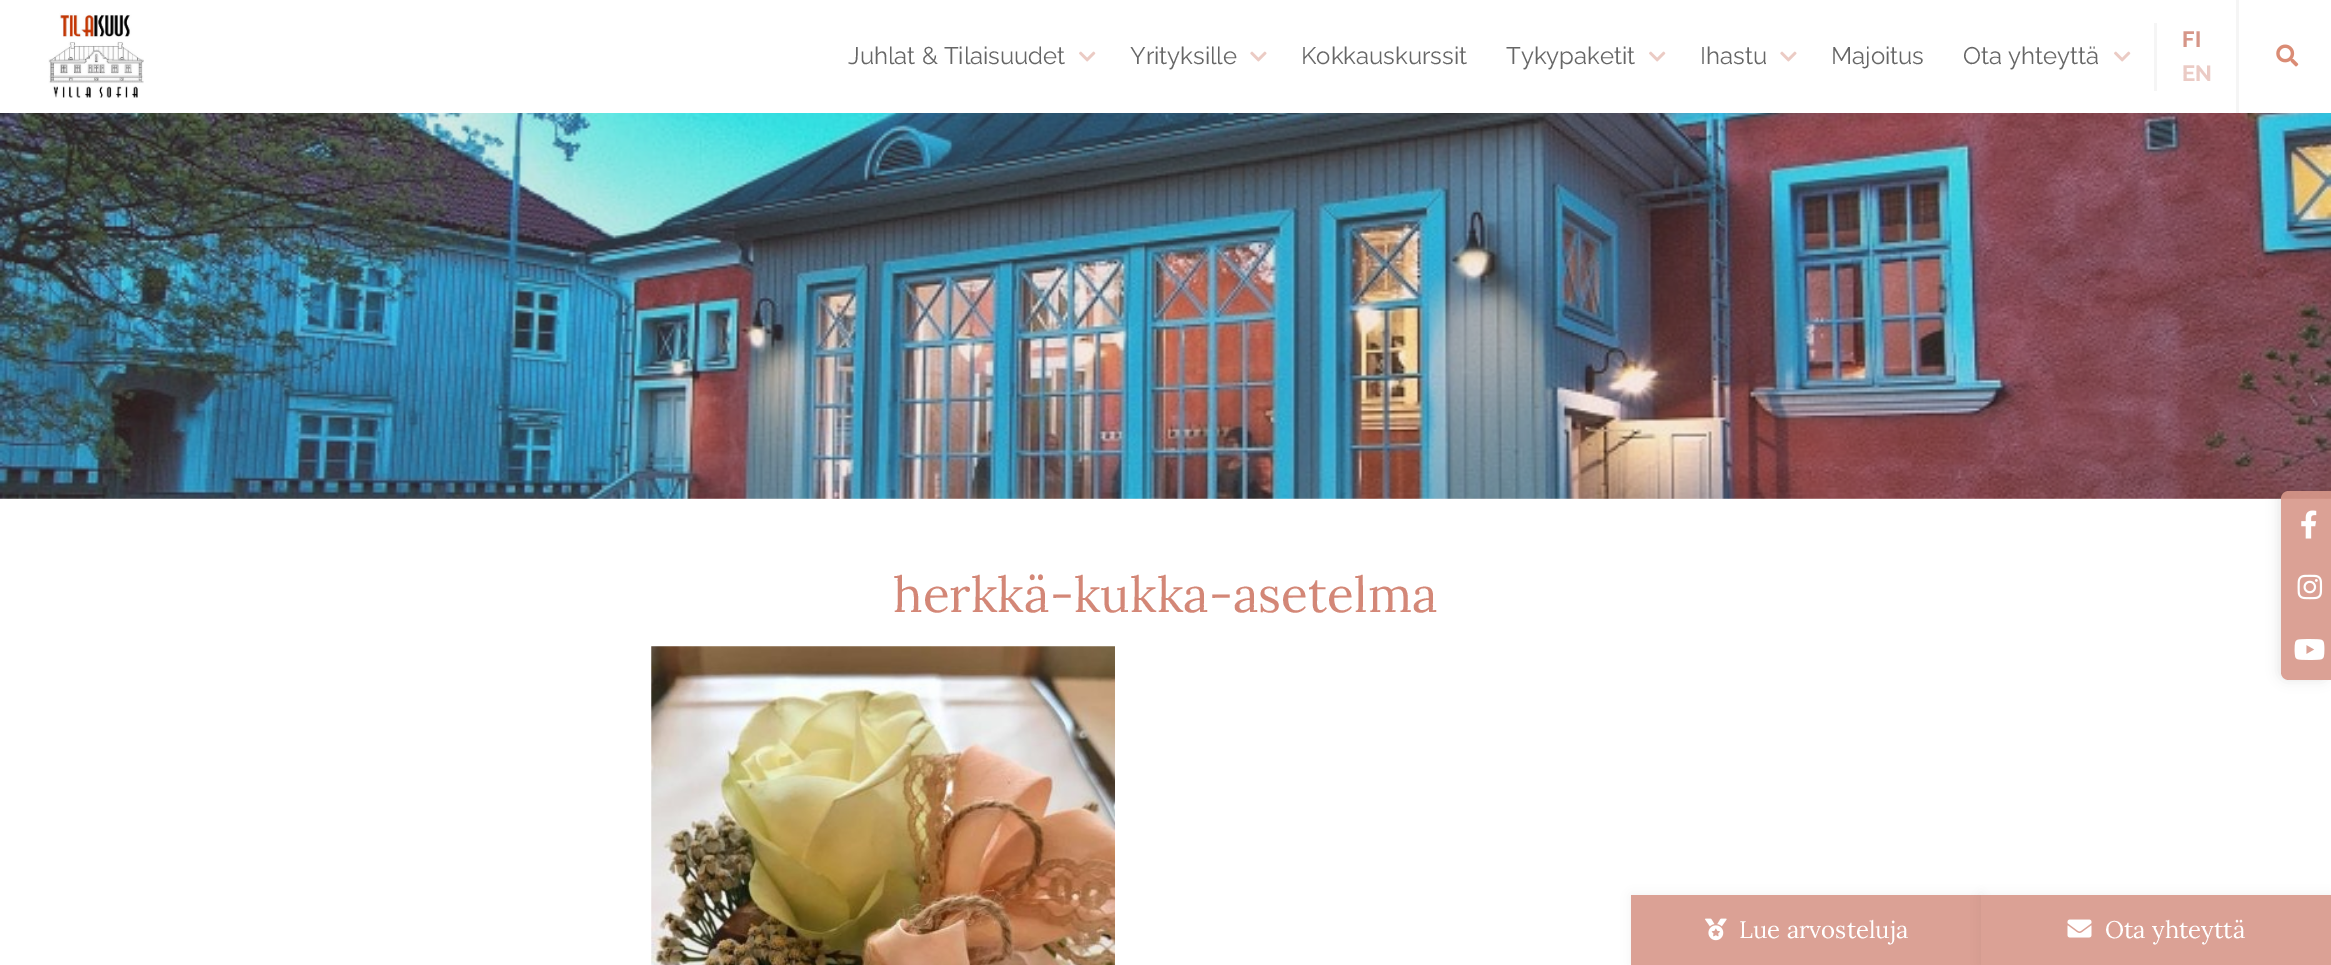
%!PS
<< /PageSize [2331 965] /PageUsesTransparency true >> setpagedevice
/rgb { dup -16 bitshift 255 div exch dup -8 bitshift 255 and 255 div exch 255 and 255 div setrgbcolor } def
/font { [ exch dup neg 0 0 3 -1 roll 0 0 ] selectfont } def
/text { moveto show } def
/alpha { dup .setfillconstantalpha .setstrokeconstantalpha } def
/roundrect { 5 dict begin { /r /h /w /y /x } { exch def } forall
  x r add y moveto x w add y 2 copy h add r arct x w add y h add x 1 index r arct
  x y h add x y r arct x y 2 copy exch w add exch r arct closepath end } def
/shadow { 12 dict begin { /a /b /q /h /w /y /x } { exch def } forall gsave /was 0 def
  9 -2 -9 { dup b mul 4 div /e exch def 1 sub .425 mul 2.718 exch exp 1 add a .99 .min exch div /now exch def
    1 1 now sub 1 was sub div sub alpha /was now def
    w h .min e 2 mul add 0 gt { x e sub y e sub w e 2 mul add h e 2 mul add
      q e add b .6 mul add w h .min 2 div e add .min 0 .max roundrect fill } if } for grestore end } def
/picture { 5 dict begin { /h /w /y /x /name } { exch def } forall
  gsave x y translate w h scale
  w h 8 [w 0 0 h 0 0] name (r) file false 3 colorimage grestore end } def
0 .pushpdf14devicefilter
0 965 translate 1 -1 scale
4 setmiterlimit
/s1 { /Raleway-Regular 24 font 16#666666 rgb } def
/s2 { /Raleway-Bold 22 font 16#D69688 rgb } def
/s3 { /Raleway-Bold 22 font 16#EBCBC5 rgb } def
/s4 { /Lora-Regular 49.5 font 16#D38777 rgb } def
/s5 { /Lora-Regular 24 font 16#FFFFFF rgb } def
16#FFFFFF rgb
0 0 2331 965 rectfill
(pic1.raw) 48 13 96 85 picture
16#F5F5F5 rgb
2154 23 3 68 rectfill
s1
(Juhlat & Tilaisuudet) 848 64 text
(pic2.raw) 1079 51 17 11 picture
(Yrityksille) 1130 64 text
(pic3.raw) 1250 51 17 11 picture
(Kokkauskurssit) 1301 64 text
(Tykypaketit) 1506 64 text
(pic2.raw) 1649 51 17 11 picture
(Ihastu) 1700 64 text
(pic3.raw) 1780 51 17 11 picture
(Majoitus) 1831 64 text
(Ota yhteyttä) 1963 64 text
(pic2.raw) 2114 51 17 11 picture
16#F5F5F5 rgb
2236 0 3 113 rectfill
s2
(FI) 2182 47 text
s3
(EN) 2182 81 text
(pic4.raw) 2276 44 23 23 picture
(pic5.raw) 0 113 2331 386 picture
s4
(herkkä-kukka-asetelma) 893 612 text
(pic6.raw) 651 646 464 319 picture
gsave
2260 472 moveto 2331 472 lineto 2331 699 lineto 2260 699 lineto closepath 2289 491 moveto 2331 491 lineto 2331 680 lineto 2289 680 lineto 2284.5 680 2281 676.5 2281 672 curveto 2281 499 lineto 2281 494.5 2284.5 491 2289 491 curveto closepath eoclip newpath
16#000000 rgb
2279 491 50 189 8 6 0.1 shadow
grestore
0.9 alpha
16#D79789 rgb
2289 491 moveto 2331 491 lineto 2331 680 lineto 2289 680 lineto 2284.5 680 2281 676.5 2281 672 curveto 2281 499 lineto 2281 494.5 2284.5 491 2289 491 curveto closepath fill
1 alpha
(pic7.raw) 2301 510 16 29 picture
(pic8.raw) 2297 574 26 26 picture
(pic9.raw) 2294 639 31 21 picture
16#000000 rgb
1631 895 350 70 0 6 0.06 shadow
16#DBA195 rgb
1631 895 350 70 rectfill
(pic10.raw) 1705 918 22 23 picture
s5
(Lue arvosteluja) 1739 938 text
16#000000 rgb
1981 895 350 70 0 6 0.06 shadow
16#DBA195 rgb
1981 895 350 70 rectfill
(pic11.raw) 2067 919 25 19 picture
s5
(Ota yhteyttä) 2105 938 text
.poppdf14devicefilter showpage
